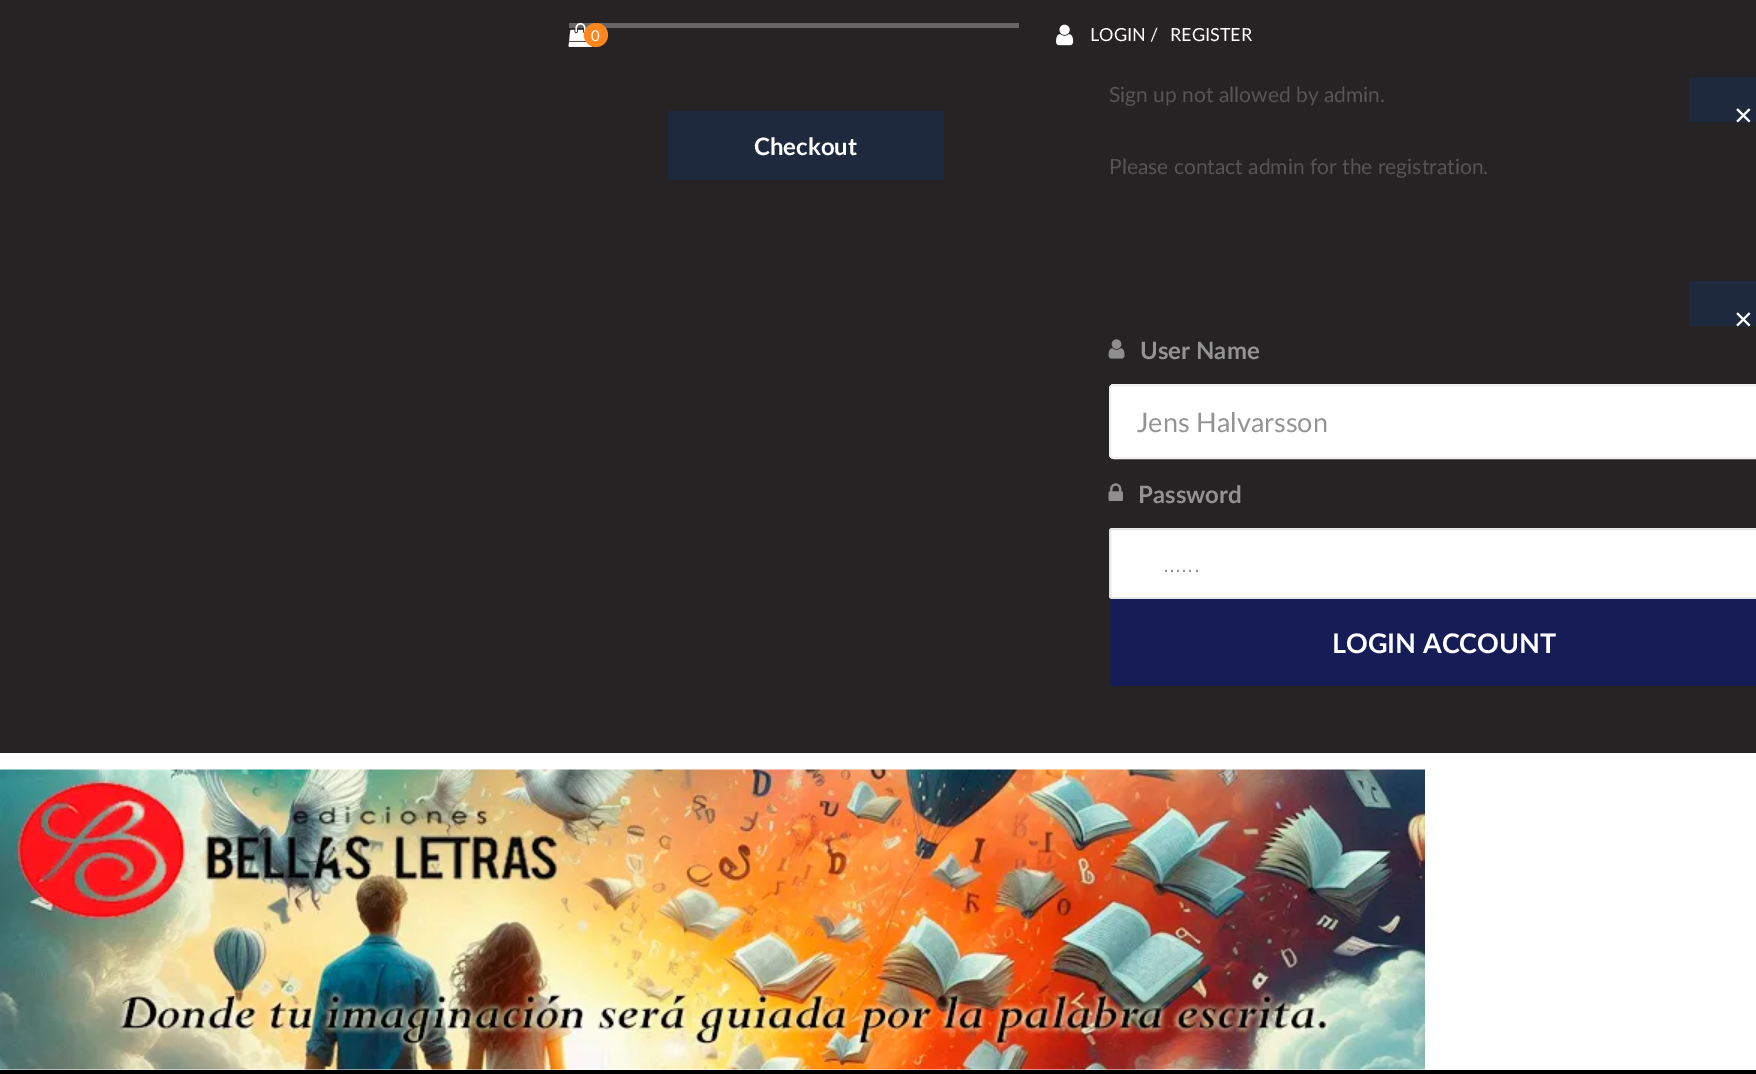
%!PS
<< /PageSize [1756 1074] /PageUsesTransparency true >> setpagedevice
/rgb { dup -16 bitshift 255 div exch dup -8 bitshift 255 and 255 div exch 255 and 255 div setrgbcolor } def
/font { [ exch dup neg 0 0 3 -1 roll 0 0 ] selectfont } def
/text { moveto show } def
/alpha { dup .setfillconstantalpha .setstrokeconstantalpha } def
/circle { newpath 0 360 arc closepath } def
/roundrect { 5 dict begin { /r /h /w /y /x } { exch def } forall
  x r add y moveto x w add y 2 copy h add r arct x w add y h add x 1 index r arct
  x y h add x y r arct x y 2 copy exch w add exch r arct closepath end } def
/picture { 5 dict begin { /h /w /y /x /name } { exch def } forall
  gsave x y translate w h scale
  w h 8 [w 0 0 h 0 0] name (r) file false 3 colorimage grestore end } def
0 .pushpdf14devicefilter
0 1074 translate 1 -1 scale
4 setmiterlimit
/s1 { /Lato-Regular 15 font 16#FFFFFF rgb } def
/s2 { /Lato-Bold 24 font 16#FFFFFF rgb } def
/s3 { /Lato-Regular 18 font 16#FFFFFF rgb } def
/s4 { /Lato-Regular 21 font 16#555555 rgb } def
/s5 { /LiberationSans-Regular 32 font 16#FFFFFF rgb } def
/s6 { /Lato-Bold 24 font 16#939393 rgb } def
/s7 { /Lato-Regular 27 font 16#939393 rgb } def
/s8 { /LiberationSans-Regular 22 font 16#939393 rgb } def
/s9 { /Lato-Bold 27 font 16#FFFFFF rgb } def
16#000000 rgb
0 0 1756 1074 rectfill
16#252323 rgb
0 0 1756 753 rectfill
16#666666 rgb
569 23 450 5 rectfill
(pic1.raw) 568 22 25 25 picture
16#FF851D rgb
596 35 12 circle fill
s1
(0) 591 41 text
16#1E293D rgb
668 111 276 69 rectfill
s2
(Checkout) 754 155 text
(pic2.raw) 1056 24 18 22 picture
s3
(LOGIN /) 1090 41 text
(REGISTER) 1170 41 text
s4
(Sign up not allowed by admin.) 1109 102 text
(Please contact admin for the registration.) 1109 174 text
16#1E293D rgb
1689 77 67 45 rectfill
s5
(×) 1734 126 text
16#1E293D rgb
1689 281 67 45 rectfill
s5
(×) 1734 330 text
(pic3.raw) 1108 339 17 20 picture
s6
(User Name) 1140 359 text
16#FFFFFF rgb
1114 384 moveto 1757 384 lineto 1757 459 lineto 1114 459 lineto 1111 459 1109 457 1109 454 curveto 1109 389 lineto 1109 386 1111 384 1114 384 curveto closepath fill
16#F0F0F0 rgb
2 setlinewidth
1110 385 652 73 4 roundrect stroke
s7
(Jens Halvarsson) 1137 432 text
(pic4.raw) 1108 483 15 18 picture
s6
(Password) 1138 503 text
16#FFFFFF rgb
1112 528 moveto 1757 528 lineto 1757 599 lineto 1112 599 lineto 1110.5 599 1109 597.5 1109 596 curveto 1109 531 lineto 1109 529.5 1110.5 528 1112 528 curveto closepath fill
0.1 alpha
16#000000 rgb
1110 529 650 69 2 roundrect stroke
1 alpha
s8
(......) 1163 572 text
16#161D56 rgb
1114 599 moveto 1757 599 lineto 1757 686 lineto 1114 686 lineto 1111 686 1109 684 1109 681 curveto 1109 604 lineto 1109 601 1111 599 1114 599 curveto closepath fill
s9
(LOGIN ACCOUNT) 1332 653 text
0 753 1756 317 rectfill
(pic5.raw) 0 769 1425 301 picture
.poppdf14devicefilter showpage
